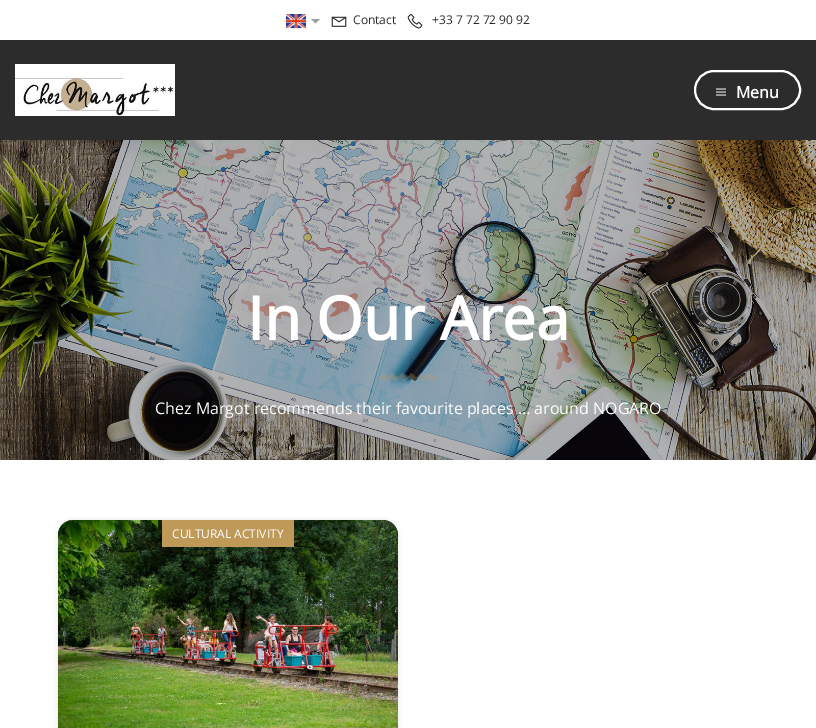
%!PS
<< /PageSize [816 728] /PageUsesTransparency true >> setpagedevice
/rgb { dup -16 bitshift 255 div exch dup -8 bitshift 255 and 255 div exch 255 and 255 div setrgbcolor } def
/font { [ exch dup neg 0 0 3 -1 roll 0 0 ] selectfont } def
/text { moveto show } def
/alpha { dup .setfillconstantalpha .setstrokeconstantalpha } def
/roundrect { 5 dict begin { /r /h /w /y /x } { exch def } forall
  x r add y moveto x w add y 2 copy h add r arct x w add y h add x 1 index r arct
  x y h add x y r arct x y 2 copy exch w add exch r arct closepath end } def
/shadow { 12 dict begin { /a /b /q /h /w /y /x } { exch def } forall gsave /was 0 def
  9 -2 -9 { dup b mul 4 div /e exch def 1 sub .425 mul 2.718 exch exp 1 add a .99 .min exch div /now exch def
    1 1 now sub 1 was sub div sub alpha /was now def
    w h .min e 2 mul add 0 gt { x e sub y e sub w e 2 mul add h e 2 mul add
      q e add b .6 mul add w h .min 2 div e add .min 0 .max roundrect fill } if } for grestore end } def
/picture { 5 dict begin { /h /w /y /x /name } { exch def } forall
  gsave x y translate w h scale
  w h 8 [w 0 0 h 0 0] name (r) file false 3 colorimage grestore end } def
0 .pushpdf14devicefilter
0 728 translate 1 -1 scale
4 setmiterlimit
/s1 { /OpenSans-Regular 12 font 16#2C2C2C rgb } def
/s2 { /OpenSans-Bold 16 font 16#FFFFFF rgb } def
/s3 { /OpenSans-Bold 60 font 16#FFFFFF rgb } def
/s4 { /OpenSans-Regular 16 font 16#FFFFFF rgb } def
/s5 { /OpenSans-Regular 12 font 16#FFFFFF rgb } def
16#FFFFFF rgb
0 0 816 728 rectfill
(pic1.raw) 286 14 20 14 picture
16#A09D9D rgb
311 19 moveto 320 19 lineto 315.5 23.5 lineto closepath fill
(pic2.raw) 331 16 16 11 picture
s1
(Contact) 353 24 text
(pic3.raw) 407 14 16 15 picture
(+33 7 72 72 90 92) 432 24 text
(pic4.raw) 0 140 816 320 picture
0 40 816 100 rectfill
(pic5.raw) 15 64 160 52 picture
16#FFFFFF rgb
2 setlinewidth
695 71 105 38 19 roundrect stroke
(pic6.raw) 716 88 10 8 picture
s2
(Menu) 736 98 text
0.3 alpha
16#000000 rgb
0 140 816 320 rectfill
1 alpha
s3
(In Our Area) 247 340 text
(pic7.raw) 378 373 60 9 picture
s4
(Chez Margot recommends their favourite places … around NOGARO) 155 414 text
16#000000 rgb
58 520 340 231 15 2.5 0.1 shadow
(pic8.raw) 58 520 340 208 picture
16#BF9958 rgb
162 520 132 27 rectfill
s5
(CULTURAL ACTIVITY) 172 538 text
.poppdf14devicefilter showpage
